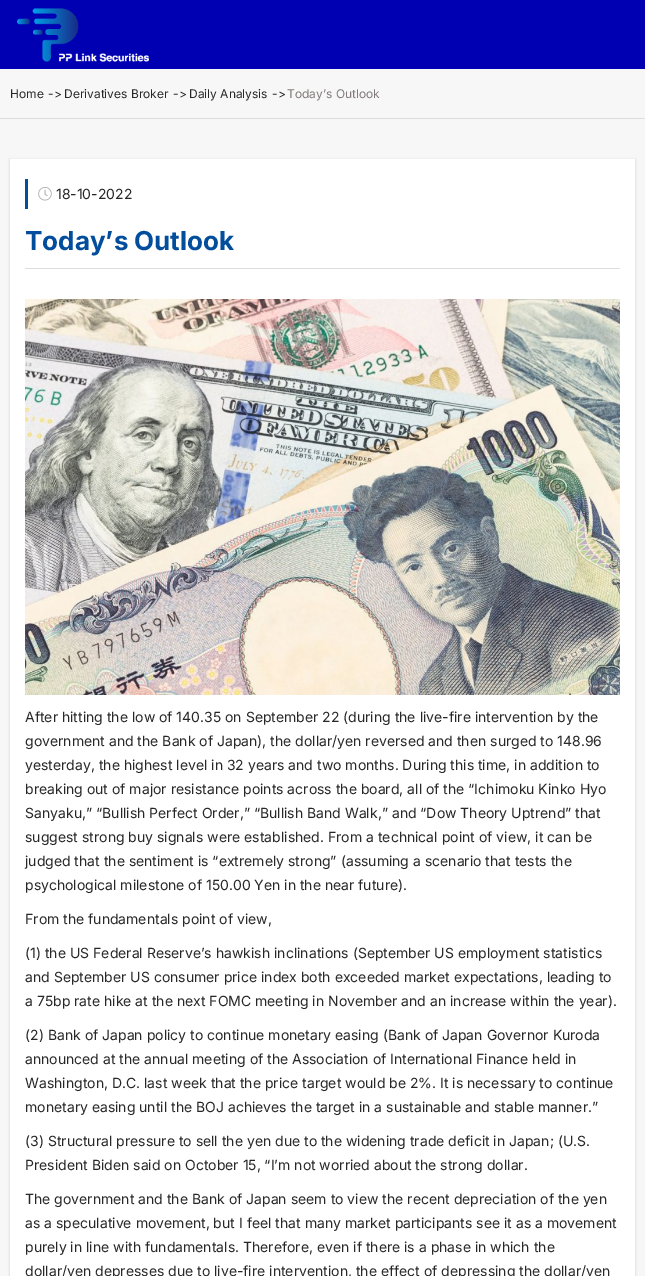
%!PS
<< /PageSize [645 1276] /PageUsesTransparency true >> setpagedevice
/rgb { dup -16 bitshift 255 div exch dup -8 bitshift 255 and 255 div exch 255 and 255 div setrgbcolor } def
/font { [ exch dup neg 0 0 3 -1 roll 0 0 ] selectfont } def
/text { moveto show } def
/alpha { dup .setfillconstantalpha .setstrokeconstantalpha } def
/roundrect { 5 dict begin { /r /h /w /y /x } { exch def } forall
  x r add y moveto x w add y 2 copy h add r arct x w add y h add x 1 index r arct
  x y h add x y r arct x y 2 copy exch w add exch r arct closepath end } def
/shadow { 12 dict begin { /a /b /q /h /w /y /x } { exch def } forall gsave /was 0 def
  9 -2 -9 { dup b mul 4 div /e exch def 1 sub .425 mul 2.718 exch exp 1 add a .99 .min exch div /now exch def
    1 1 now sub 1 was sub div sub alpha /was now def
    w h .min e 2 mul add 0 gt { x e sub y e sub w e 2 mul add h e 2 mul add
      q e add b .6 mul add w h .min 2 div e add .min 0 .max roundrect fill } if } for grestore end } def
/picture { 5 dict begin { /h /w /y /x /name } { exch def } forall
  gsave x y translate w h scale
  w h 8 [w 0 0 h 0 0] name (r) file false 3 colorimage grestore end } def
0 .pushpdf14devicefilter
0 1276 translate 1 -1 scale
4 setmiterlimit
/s1 { /Inter-Regular 12 font 16#272727 rgb } def
/s2 { /Inter-Regular 12 font 16#827A7A rgb } def
/s3 { /Inter-Regular 14 font 16#272727 rgb } def
/s4 { /Inter-Bold 26 font 16#024D9C rgb } def
16#0000B2 rgb
0 0 645 1276 rectfill
(pic1.raw) 16 8 133 54 picture
16#F7F7F7 rgb
0 69 645 49 rectfill
16#DDDDDD rgb
0 118 645 1 rectfill
s1
(Home) 10 98 text
(->) 48 98 text
(Derivatives Broker) 64 98 text
(->) 173 98 text
(Daily Analysis) 189 98 text
(->) 272 98 text
s2
(Today’s Outlook) 287 98 text
16#F7F7F7 rgb
0 119 645 1157 rectfill
16#E3E3E3 rgb
9 159 627 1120 0 1 1 shadow
16#FFFFFF rgb
10 159 625 1117 rectfill
16#DDDDDD rgb
25 268 595 1 rectfill
16#024D9C rgb
25 179 3 30 rectfill
(pic2.raw) 38 187 14 14 picture
s3
(18-10-2022) 56 199 text
s4
(Today’s Outlook) 25 250 text
(pic3.raw) 25 299 595 396 picture
s3
(After hitting the low of 140.35 on September 22 \(during the live-fire intervention by the) 25 722 text
(government and the Bank of Japan\), the dollar/yen reversed and then surged to 148.96) 25 746 text
(yesterday, the highest level in 32 years and two months. During this time, in addition to) 25 770 text
(breaking out of major resistance points across the board, all of the “Ichimoku Kinko Hyo) 25 794 text
(Sanyaku,” “Bullish Perfect Order,” “Bullish Band Walk,” and “Dow Theory Uptrend” that) 25 818 text
(suggest strong buy signals were established. From a technical point of view, it can be) 25 842 text
(judged that the sentiment is “extremely strong” \(assuming a scenario that tests the) 25 866 text
(psychological milestone of 150.00 Yen in the near future\).) 25 890 text
(From the fundamentals point of view,) 25 924 text
(\(1\) the US Federal Reserve’s hawkish inclinations \(September US employment statistics) 25 958 text
(and September US consumer price index both exceeded market expectations, leading to) 25 982 text
(a 75bp rate hike at the next FOMC meeting in November and an increase within the year\).) 25 1006 text
(\(2\) Bank of Japan policy to continue monetary easing \(Bank of Japan Governor Kuroda) 25 1040 text
(announced at the annual meeting of the Association of International Finance held in) 25 1064 text
(Washington, D.C. last week that the price target would be 2%. It is necessary to continue) 25 1088 text
(monetary easing until the BOJ achieves the target in a sustainable and stable manner.”) 25 1112 text
(\(3\) Structural pressure to sell the yen due to the widening trade deficit in Japan; \(U.S.) 25 1146 text
(President Biden said on October 15, “I’m not worried about the strong dollar.) 25 1170 text
(The government and the Bank of Japan seem to view the recent depreciation of the yen) 25 1204 text
(as a speculative movement, but I feel that many market participants see it as a movement) 25 1228 text
(purely in line with fundamentals. Therefore, even if there is a phase in which the) 25 1252 text
(dollar/yen depresses due to live-fire intervention, the effect of depressing the dollar/yen) 25 1276 text
.poppdf14devicefilter showpage
